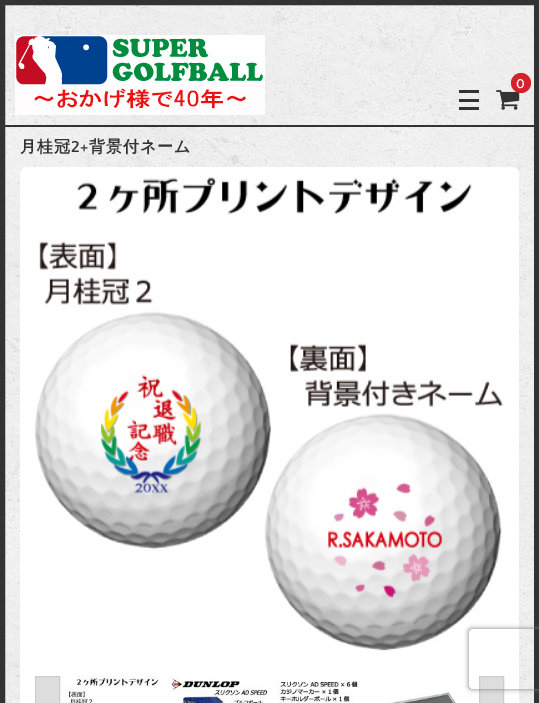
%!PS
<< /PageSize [539 703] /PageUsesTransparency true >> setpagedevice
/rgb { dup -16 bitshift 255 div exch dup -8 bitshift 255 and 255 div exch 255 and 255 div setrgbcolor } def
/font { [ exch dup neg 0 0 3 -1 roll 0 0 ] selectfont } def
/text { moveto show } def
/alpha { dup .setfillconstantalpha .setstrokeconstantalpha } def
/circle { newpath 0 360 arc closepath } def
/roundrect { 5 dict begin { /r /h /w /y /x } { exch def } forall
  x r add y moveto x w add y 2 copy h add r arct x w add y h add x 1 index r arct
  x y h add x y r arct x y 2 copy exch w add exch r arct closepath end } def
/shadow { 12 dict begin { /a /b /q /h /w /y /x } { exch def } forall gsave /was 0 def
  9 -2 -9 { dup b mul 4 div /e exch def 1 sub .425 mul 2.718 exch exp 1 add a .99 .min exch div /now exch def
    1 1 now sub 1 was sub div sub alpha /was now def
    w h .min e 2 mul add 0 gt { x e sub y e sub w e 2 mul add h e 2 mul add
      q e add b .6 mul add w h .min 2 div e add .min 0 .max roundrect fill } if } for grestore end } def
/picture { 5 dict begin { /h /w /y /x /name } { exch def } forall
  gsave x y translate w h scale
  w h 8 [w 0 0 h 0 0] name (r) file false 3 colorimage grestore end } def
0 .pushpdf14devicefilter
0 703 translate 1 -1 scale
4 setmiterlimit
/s1 { /QuattrocentoSans-Bold 13 font 16#FFFFFF rgb } def
16#FFFFFF rgb
0 0 539 703 rectfill
(pic1.raw) 5 5 529 698 picture
16#333333 rgb
5 setlinewidth
2.5 2.5 534 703 rectstroke
5 125 529 2 rectfill
(pic2.raw) 15 35 250 80 picture
(pic3.raw) 496 90 24 20 picture
16#D3222A rgb
521 83 10 circle fill
s1
(0) 516 88 text
16#333333 rgb
459 90 20 3 rectfill
459 99 20 3 rectfill
459 107 20 3 rectfill
/WenQuanYiZenHei-Bold 16 font
20 152 moveto 1 0 (月桂冠) ashow
/QuattrocentoSans-Bold 16 font
71 152 moveto 1 0 (2+) ashow
/WenQuanYiZenHei-Bold 16 font
89 152 moveto 1 0 (背景付ネーム) ashow
16#FFFFFF rgb
20 167 499 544 8 roundrect fill
(pic4.raw) 20 169 499 482 picture
16#DDDDDD rgb
35.5 676.5 moveto 59.5 676.5 lineto 59.5 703.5 lineto 35.5 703.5 lineto closepath gsave fill grestore
16#CCCCCC rgb
1 setlinewidth
stroke
(pic5.raw) 65 676 94 27 picture
(pic6.raw) 168 676 100 27 picture
(pic7.raw) 277 681 82 22 picture
(pic8.raw) 389 692 67 11 picture
16#DDDDDD rgb
479.5 676.5 moveto 503.5 676.5 lineto 503.5 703.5 lineto 479.5 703.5 lineto closepath gsave fill grestore
16#CCCCCC rgb
stroke
gsave
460 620 moveto 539 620 lineto 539 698 lineto 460 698 lineto closepath 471 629 moveto 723 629 lineto 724 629 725 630 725 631 curveto 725 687 lineto 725 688 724 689 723 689 curveto 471 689 lineto 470 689 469 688 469 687 curveto 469 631 lineto 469 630 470 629 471 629 curveto closepath eoclip newpath
16#808080 rgb
469 629 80 60 2 2.5 1 shadow
grestore
.poppdf14devicefilter showpage
